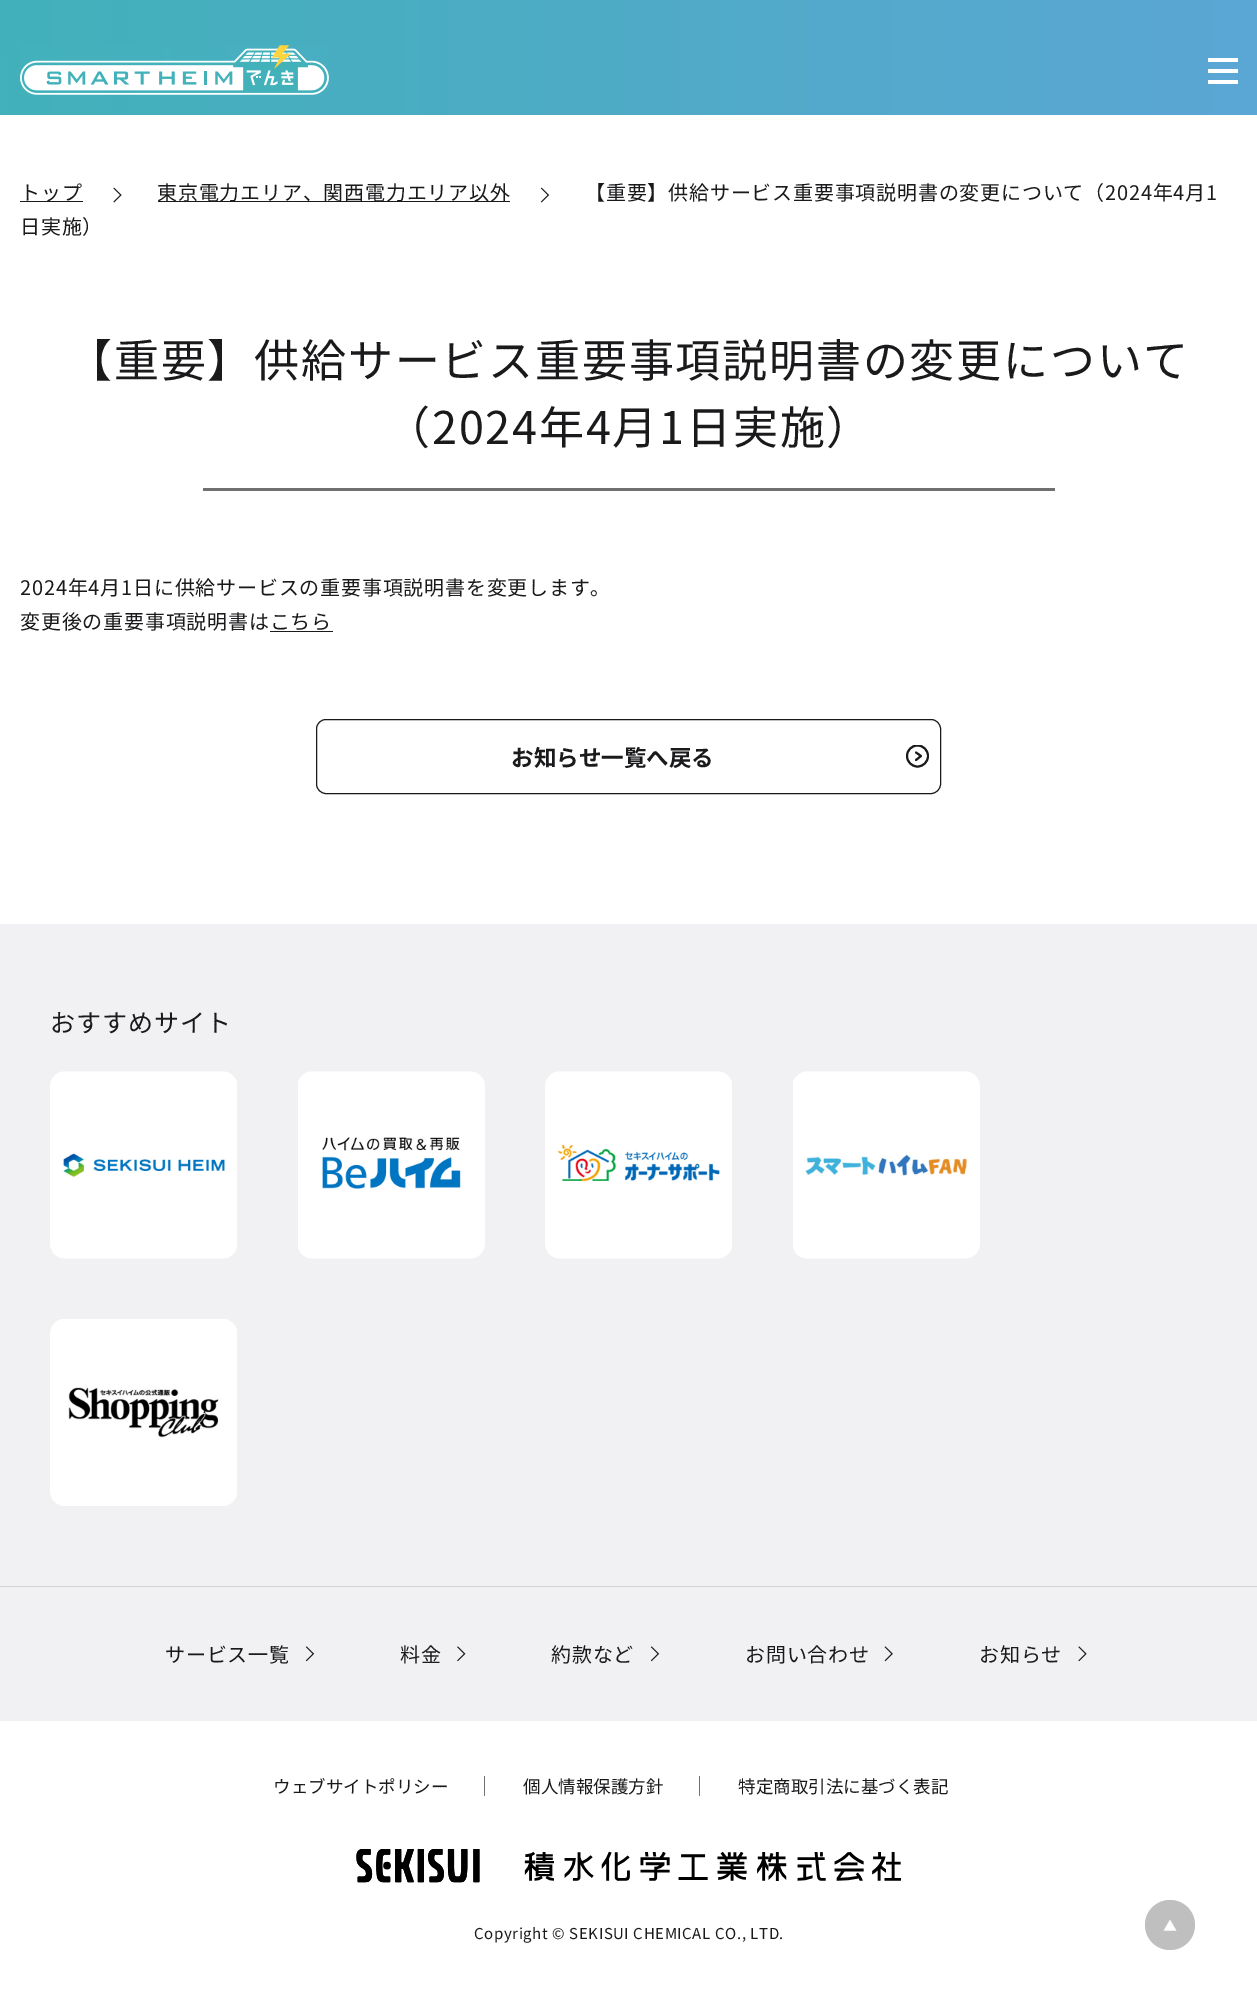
%!PS
<< /PageSize [1257 1989] >> setpagedevice
/rgb { dup -16 bitshift 255 div exch dup -8 bitshift 255 and 255 div exch 255 and 255 div setrgbcolor } def
/font { [ exch dup neg 0 0 3 -1 roll 0 0 ] selectfont } def
/text { moveto show } def
/circle { newpath 0 360 arc closepath } def
/roundrect { 5 dict begin { /r /h /w /y /x } { exch def } forall
  x r add y moveto x w add y 2 copy h add r arct x w add y h add x 1 index r arct
  x y h add x y r arct x y 2 copy exch w add exch r arct closepath end } def
/picture { 5 dict begin { /h /w /y /x /name } { exch def } forall
  gsave x y translate w h scale
  w h 8 [w 0 0 h 0 0] name (r) file false 3 colorimage grestore end } def
0 1989 translate 1 -1 scale
4 setmiterlimit
/s1 { /NotoSansJP-Bold 22.5 font 16#1A1A1C rgb } def
/s2 { /NotoSansJP-Regular 17.5 font 16#1A1A1C rgb } def
/s3 { /NotoSansJP-Regular 14 font 16#FFFFFF rgb } def
16#FFFFFF rgb
0 0 1257 1989 rectfill
gsave 0 0 moveto 1257 0 lineto 1257 115 lineto 0 115 lineto closepath clip newpath
<< /ShadingType 2 /ColorSpace /DeviceRGB /Coords [0 58 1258 57] /Extend [true true] /Function << /FunctionType 2 /Domain [0 1] /C0 [0.259 0.694 0.729] /C1 [0.357 0.651 0.835] /N 1 >> >> shfill grestore
(pic1.raw) 20 45 309 50 picture
1208 58 30 4 rectfill
1208 69 30 4 rectfill
1208 80 30 4 rectfill
16#1A1A1C rgb
20 201 63 1 rectfill
/NotoSansJP-Regular 20 font
20 200 moveto 0.8 0 (トップ) ashow
(pic2.raw) 113 187 9 16 picture
158 201 352 1 rectfill
157 200 moveto 0.8 0 (東京電力エリア、関西電力エリア以外) ashow
(pic3.raw) 540 187 10 16 picture
585 200 moveto 0.8 0 (【重要】供給サービス重要事項説明書の変更について（2024年4月1) ashow
20 234 moveto 0.8 0 (日実施）) ashow
/NotoSansJP-Regular 45 font
67 377 moveto 1.8 0 (【重要】供給サービス重要事項説明書の変更について) ashow
385 444 moveto 1.8 0 (（2024年4月1日実施）) ashow
16#707070 rgb
203 488 852 3 rectfill
/NotoSansJP-Regular 20 font
16#1A1A1C rgb
20 595 moveto 0.8 0 (2024年4月1日に供給サービスの重要事項説明書を変更します。) ashow
20 629 moveto 0.8 0 (変更後の重要事項説明書はこちら) ashow
270 631 63 1 rectfill
16#19191C rgb
316.5 719.5 624 74 9.5 roundrect stroke
s1
(お知らせ一覧へ戻る) 511 766 text
gsave
906 745 23 23 rectclip
2 setlinewidth
917.5 756 10.5 circle stroke
grestore
2 setlinewidth
1 setlinecap
1 setlinejoin
916 752.5 moveto 921 756 lineto 916 760 lineto stroke
16#F1F1F4 rgb
0 924 1257 797 rectfill
16#D3D3D6 rgb
0 1586 1257 1 rectfill
/NotoSansJP-Regular 25 font
16#1A1A1C rgb
50 1032 moveto 1 0 (おすすめサイト) ashow
(pic4.raw) 50 1071 187 188 picture
(pic5.raw) 298 1071 187 188 picture
(pic6.raw) 545 1071 187 188 picture
(pic7.raw) 793 1071 187 188 picture
(pic8.raw) 50 1319 187 187 picture
/NotoSansJP-Regular 20 font
165 1662 moveto 0.8 0 (サービス一覧) ashow
(pic9.raw) 305 1646 10 16 picture
400 1662 moveto 0.8 0 (料金) ashow
(pic10.raw) 457 1646 9 16 picture
551 1662 moveto 0.8 0 (約款など) ashow
(pic9.raw) 650 1646 10 16 picture
745 1662 moveto 0.8 0 (お問い合わせ) ashow
(pic11.raw) 884 1646 9 16 picture
979 1662 moveto 0.8 0 (お知らせ) ashow
(pic12.raw) 1078 1646 9 16 picture
s2
(ウェブサイトポリシー) 273 1793 text
16#707070 rgb
484 1776 1 20 rectfill
s2
(個人情報保護方針) 523 1793 text
16#707070 rgb
699 1776 1 20 rectfill
s2
(特定商取引法に基づく表記) 738 1793 text
(pic13.raw) 356 1849 545 34 picture
/NotoSansJP-Regular 15 font
474 1939 moveto 0.6 0 (Copyright © SEKISUI CHEMICAL CO., LTD.) ashow
16#BFBFBF rgb
1170 1925 25 circle fill
s3
(▲) 1163 1931 text
showpage
